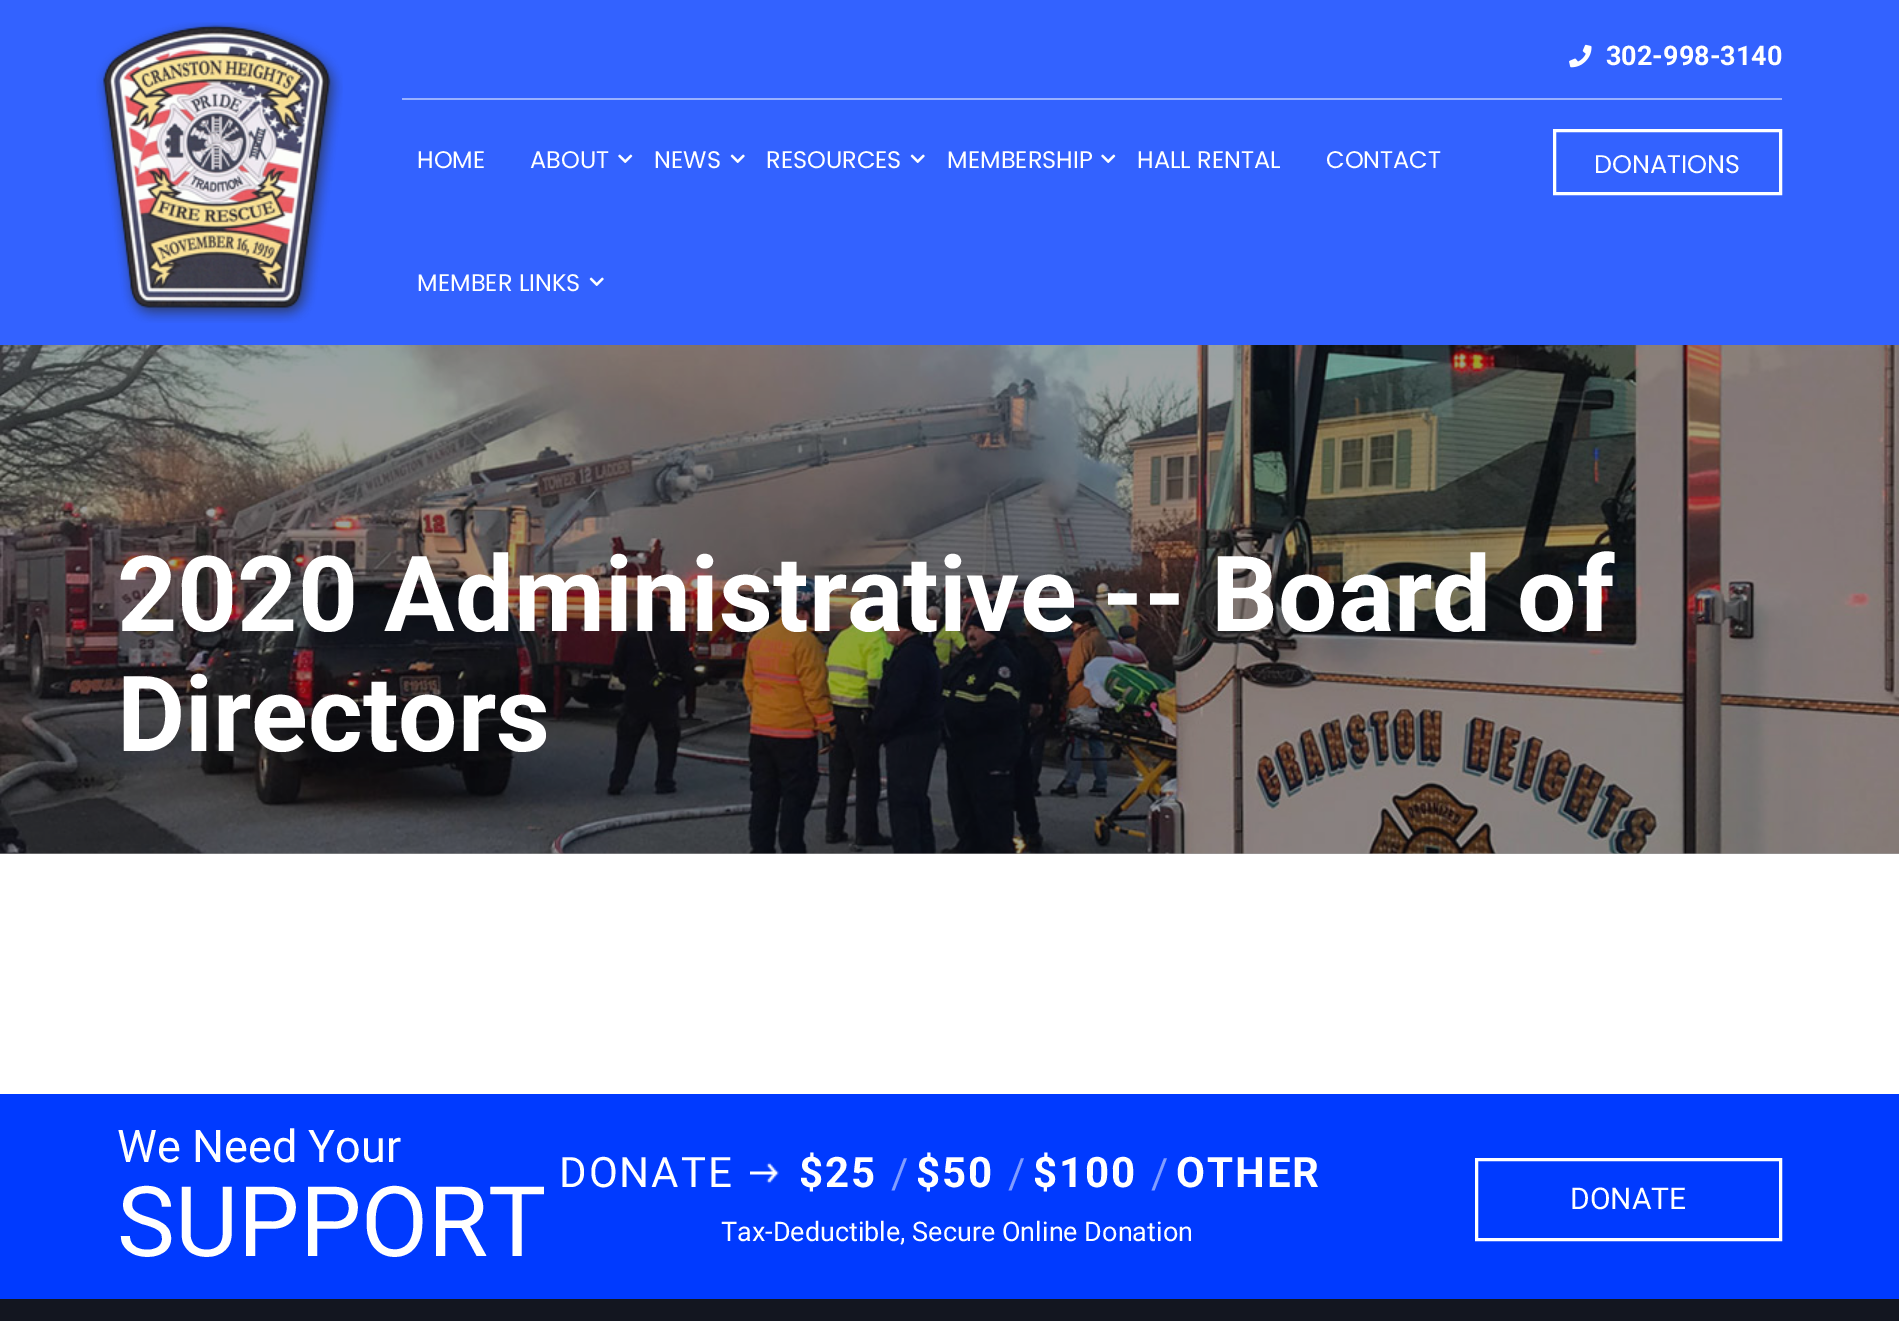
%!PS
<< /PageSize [1899 1321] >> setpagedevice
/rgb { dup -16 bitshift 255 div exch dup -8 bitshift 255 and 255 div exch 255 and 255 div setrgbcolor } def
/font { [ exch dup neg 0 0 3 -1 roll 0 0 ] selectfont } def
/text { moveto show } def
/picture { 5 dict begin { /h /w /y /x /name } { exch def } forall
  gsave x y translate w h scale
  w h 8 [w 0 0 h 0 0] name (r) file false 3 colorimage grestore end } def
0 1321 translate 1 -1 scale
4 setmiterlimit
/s1 { /Roboto-Bold 27 font 16#FFFFFF rgb } def
/s2 { /Poppins-Regular 24 font 16#FFFFFF rgb } def
/s3 { /Poppins-Regular 25.5 font 16#FFFFFF rgb } def
/s4 { /Roboto-Bold 105 font 16#FFFFFF rgb } def
/s5 { /Roboto-Regular 45 font 16#FFFFFF rgb } def
/s6 { /Roboto-Regular 97.5 font 16#FFFFFF rgb } def
/s7 { /Roboto-Regular 27 font 16#FFFFFF rgb } def
/s8 { /Roboto-Regular 30 font 16#FFFFFF rgb } def
16#FFFFFF rgb
0 0 1899 1321 rectfill
16#A1A1A2 rgb
0 853 1899 1 rectfill
16#3362FF rgb
0 0 1899 345 rectfill
(pic1.raw) 96 22 247 301 picture
16#99B1FF rgb
402 98 1380 2 rectfill
(pic2.raw) 1569 44 23 24 picture
s1
(302-998-3140) 1606 65 text
s2
(HOME) 417 168 text
(ABOUT) 530 168 text
(pic3.raw) 618 154 15 9 picture
(NEWS) 654 168 text
(pic4.raw) 730 154 15 9 picture
(RESOURCES) 766 168 text
(pic4.raw) 910 154 15 9 picture
(MEMBERSHIP) 947 168 text
(pic3.raw) 1101 154 15 9 picture
(HALL RENTAL) 1137 168 text
(CONTACT) 1326 168 text
(MEMBER LINKS) 417 291 text
(pic4.raw) 589 277 15 9 picture
3 setlinewidth
1554.5 130.5 226 63 rectstroke
s3
(DONATIONS) 1594 173 text
(pic5.raw) 0 345 1899 509 picture
s4
(2020 Administrative -- Board of) 117 631 text
(Directors) 117 751 text
16#003AFF rgb
0 1094 1899 205 rectfill
s5
(We Need Your) 117 1162 text
s6
(SUPPORT) 117 1256 text
/Roboto-Regular 42 font
559 1187 moveto 2 0 (DONATE) ashow
(pic6.raw) 750 1162 29 22 picture
/Roboto-Bold 42 font
799 1187 moveto 2 0 ($25) ashow
/Roboto-Regular 42 font
16#809DFF rgb
891 1188 moveto 2 0 (/) ashow
/Roboto-Bold 42 font
16#FFFFFF rgb
916 1187 moveto 2 0 ($50) ashow
/Roboto-Regular 42 font
16#809DFF rgb
1008 1188 moveto 2 0 (/) ashow
/Roboto-Bold 42 font
16#FFFFFF rgb
1033 1187 moveto 2 0 ($100) ashow
/Roboto-Regular 42 font
16#809DFF rgb
1151 1188 moveto 2 0 (/) ashow
/Roboto-Bold 42 font
16#FFFFFF rgb
1176 1187 moveto 2 0 (OTHER) ashow
s7
(Tax-Deductible, Secure Online Donation) 721 1241 text
1476.5 1159.5 304 80 rectstroke
s8
(DONATE) 1570 1209 text
16#131620 rgb
0 1299 1899 22 rectfill
showpage
